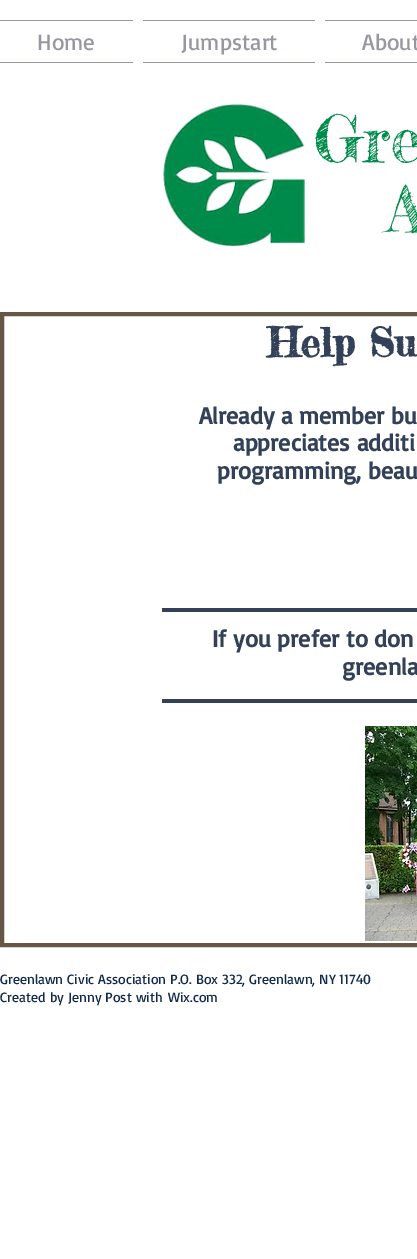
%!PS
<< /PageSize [417 1259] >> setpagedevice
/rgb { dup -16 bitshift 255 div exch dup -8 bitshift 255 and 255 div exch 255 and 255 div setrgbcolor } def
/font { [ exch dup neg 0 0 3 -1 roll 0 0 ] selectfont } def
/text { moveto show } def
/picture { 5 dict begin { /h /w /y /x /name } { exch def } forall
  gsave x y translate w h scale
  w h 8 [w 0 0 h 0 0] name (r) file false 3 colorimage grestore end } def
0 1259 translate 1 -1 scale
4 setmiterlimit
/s1 { /Basic-Regular 23 font 16#9897A1 rgb } def
/s2 { /FrederickatheGreat-Regular 64 font 16#008B4B rgb } def
/s3 { /FrederickatheGreat-Bold 40 font 16#324158 rgb } def
/s4 { /Basic-Bold 24 font 16#324158 rgb } def
/s5 { /Basic-Regular 14 font 16#112A4B rgb } def
16#FFFFFF rgb
0 0 417 1259 rectfill
16#9897A1 rgb
0 20 133 1 rectfill
0 62 133 1 rectfill
s1
(Home) 37 50 text
143 20 172 1 rectfill
143 62 172 1 rectfill
(Jumpstart) 181 50 text
325 20 92 1 rectfill
325 62 92 1 rectfill
(About) 362 50 text
(pic1.raw) 163 104 142 143 picture
s2
(Gre) 314 162 text
(A) 387 232 text
16#645844 rgb
4 setlinewidth
2 314 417 631 rectstroke
s3
(Help Su) 267 357 text
s4
(Already a member bu) 199 424 text
(appreciates additi) 233 451 text
(programming, beau) 217 479 text
162 608 255 4 rectfill
(If you prefer to don) 212 647 text
(greenla) 342 675 text
162 699 255 4 rectfill
(pic2.raw) 365 726 52 215 picture
s5
(Greenlawn Civic Association P.O. Box 332, Greenlawn, NY 11740) 0 984 text
(Created by Jenny Post with) 0 1002 text
(Wix.com) 168 1002 text
showpage
